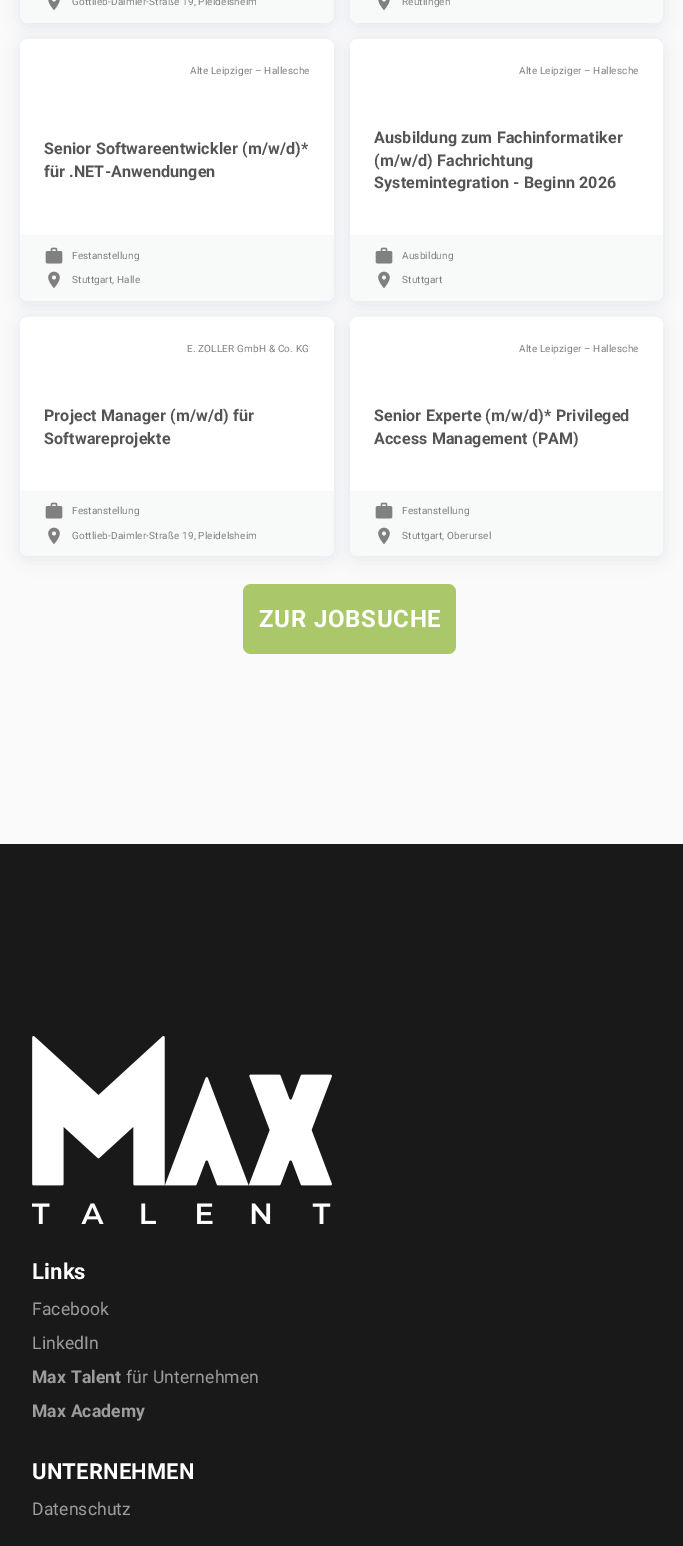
%!PS
<< /PageSize [683 1546] /PageUsesTransparency true >> setpagedevice
/rgb { dup -16 bitshift 255 div exch dup -8 bitshift 255 and 255 div exch 255 and 255 div setrgbcolor } def
/font { [ exch dup neg 0 0 3 -1 roll 0 0 ] selectfont } def
/alpha { dup .setfillconstantalpha .setstrokeconstantalpha } def
/roundrect { 5 dict begin { /r /h /w /y /x } { exch def } forall
  x r add y moveto x w add y 2 copy h add r arct x w add y h add x 1 index r arct
  x y h add x y r arct x y 2 copy exch w add exch r arct closepath end } def
/shadow { 12 dict begin { /a /b /q /h /w /y /x } { exch def } forall gsave /was 0 def
  9 -2 -9 { dup b mul 4 div /e exch def 1 sub .425 mul 2.718 exch exp 1 add a .99 .min exch div /now exch def
    1 1 now sub 1 was sub div sub alpha /was now def
    w h .min e 2 mul add 0 gt { x e sub y e sub w e 2 mul add h e 2 mul add
      q e add b .6 mul add w h .min 2 div e add .min 0 .max roundrect fill } if } for grestore end } def
/picture { 5 dict begin { /h /w /y /x /name } { exch def } forall
  gsave x y translate w h scale
  w h 8 [w 0 0 h 0 0] name (r) file false 3 colorimage grestore end } def
0 .pushpdf14devicefilter
0 1546 translate 1 -1 scale
4 setmiterlimit
16#FAFAFA rgb
0 0 683 1546 rectfill
16#A9B0C1 rgb
20 -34 314 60 8 8.5 0.25 shadow
16#F8F9F9 rgb
20 -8 moveto 334 -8 lineto 334 15 lineto 334 19.5 330.5 23 326 23 curveto 28 23 lineto 23.5 23 20 19.5 20 15 curveto closepath fill
(pic1.raw) 48 0 12 11 picture
/Roboto-Regular 10 font
16#808080 rgb
72 5 moveto 0.15 0 (Gottlieb-Daimler-Straße 19, Pleidelsheim) ashow
16#A9B0C1 rgb
350 -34 313 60 8 8.5 0.25 shadow
16#F8F9F9 rgb
350 -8 moveto 663 -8 lineto 663 15 lineto 663 19.5 659.5 23 655 23 curveto 358 23 lineto 353.5 23 350 19.5 350 15 curveto closepath fill
(pic1.raw) 378 0 12 11 picture
16#808080 rgb
402 5 moveto 0.15 0 (Reutlingen) ashow
16#A9B0C1 rgb
20 42 314 262 8 8.5 0.25 shadow
16#FFFFFF rgb
20 39 314 262 8 roundrect fill
16#808080 rgb
190 74 moveto 0.15 0 (Alte Leipziger – Hallesche) ashow
/Roboto-Bold 16 font
16#545454 rgb
44 154 moveto 0.15 0 (Senior Softwareentwickler \(m/w/d\)*) ashow
44 177 moveto 0.15 0 (für .NET-Anwendungen) ashow
16#F8F9F9 rgb
20 235 moveto 334 235 lineto 334 293 lineto 334 297.5 330.5 301 326 301 curveto 28 301 lineto 23.5 301 20 297.5 20 293 curveto closepath fill
(pic2.raw) 45 247 18 17 picture
/Roboto-Regular 10 font
16#808080 rgb
72 259 moveto 0.15 0 (Festanstellung) ashow
(pic3.raw) 48 271 12 18 picture
72 283 moveto 0.15 0 (Stuttgart, Halle) ashow
16#A9B0C1 rgb
350 42 313 262 8 8.5 0.25 shadow
16#FFFFFF rgb
350 39 313 262 8 roundrect fill
16#808080 rgb
519 74 moveto 0.15 0 (Alte Leipziger – Hallesche) ashow
/Roboto-Bold 16 font
16#545454 rgb
374 143 moveto 0.15 0 (Ausbildung zum Fachinformatiker) ashow
374 166 moveto 0.15 0 (\(m/w/d\) Fachrichtung) ashow
374 188 moveto 0.15 0 (Systemintegration - Beginn 2026) ashow
16#F8F9F9 rgb
350 235 moveto 663 235 lineto 663 293 lineto 663 297.5 659.5 301 655 301 curveto 358 301 lineto 353.5 301 350 297.5 350 293 curveto closepath fill
(pic2.raw) 375 247 18 17 picture
/Roboto-Regular 10 font
16#808080 rgb
402 259 moveto 0.15 0 (Ausbildung) ashow
(pic3.raw) 378 271 12 18 picture
402 283 moveto 0.15 0 (Stuttgart) ashow
16#A9B0C1 rgb
20 320 314 239 8 8.5 0.25 shadow
16#FFFFFF rgb
20 317 314 239 8 roundrect fill
16#808080 rgb
187 352 moveto 0.15 0 (E. ZOLLER GmbH & Co. KG) ashow
/Roboto-Bold 16 font
16#545454 rgb
44 421 moveto 0.15 0 (Project Manager \(m/w/d\) für) ashow
44 444 moveto 0.15 0 (Softwareprojekte) ashow
16#F8F9F9 rgb
20 491 moveto 334 491 lineto 334 548 lineto 334 552.5 330.5 556 326 556 curveto 28 556 lineto 23.5 556 20 552.5 20 548 curveto closepath fill
(pic2.raw) 45 502 18 17 picture
/Roboto-Regular 10 font
16#808080 rgb
72 514 moveto 0.15 0 (Festanstellung) ashow
(pic3.raw) 48 527 12 18 picture
72 539 moveto 0.15 0 (Gottlieb-Daimler-Straße 19, Pleidelsheim) ashow
16#A9B0C1 rgb
350 320 313 239 8 8.5 0.25 shadow
16#FFFFFF rgb
350 317 313 239 8 roundrect fill
16#808080 rgb
519 352 moveto 0.15 0 (Alte Leipziger – Hallesche) ashow
/Roboto-Bold 16 font
16#545454 rgb
374 421 moveto 0.15 0 (Senior Experte \(m/w/d\)* Privileged) ashow
374 444 moveto 0.15 0 (Access Management \(PAM\)) ashow
16#F8F9F9 rgb
350 491 moveto 663 491 lineto 663 548 lineto 663 552.5 659.5 556 655 556 curveto 358 556 lineto 353.5 556 350 552.5 350 548 curveto closepath fill
(pic2.raw) 375 502 18 17 picture
/Roboto-Regular 10 font
16#808080 rgb
402 514 moveto 0.15 0 (Festanstellung) ashow
(pic3.raw) 378 527 12 18 picture
402 539 moveto 0.15 0 (Stuttgart, Oberursel) ashow
16#AAC869 rgb
243 584 213 70 8 roundrect fill
/Roboto-Bold 24 font
16#FFFFFF rgb
259 627 moveto 0.75 0 (ZUR JOBSUCHE) ashow
16#191919 rgb
0 844 683 702 rectfill
(pic4.raw) 32 1036 300 188 picture
/Roboto-Bold 22 font
16#FFFFFF rgb
32 1279 moveto 0.15 0 (Links) ashow
/Roboto-Regular 17.5 font
16#9C9C9C rgb
32 1315 moveto 0.15 0 (Facebook) ashow
32 1349 moveto 0.15 0 (LinkedIn) ashow
/Roboto-Bold 17.5 font
32 1383 moveto 0.15 0 (Max Talent) ashow
/Roboto-Regular 17.5 font
126 1383 moveto 0.15 0 (für Unternehmen) ashow
/Roboto-Bold 17.5 font
32 1417 moveto 0.15 0 (Max Academy) ashow
/Roboto-Bold 22 font
16#FFFFFF rgb
32 1479 moveto 0.15 0 (UNTERNEHMEN) ashow
/Roboto-Regular 17.5 font
16#9C9C9C rgb
32 1515 moveto 0.15 0 (Datenschutz) ashow
.poppdf14devicefilter showpage
